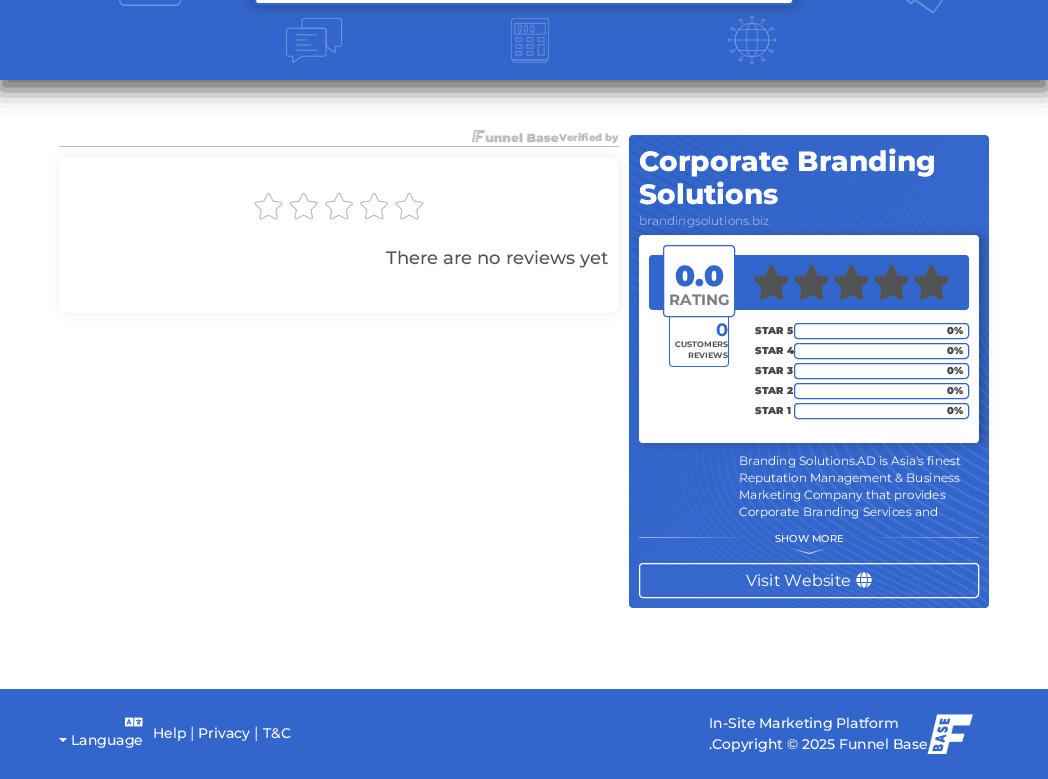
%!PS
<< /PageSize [1048 779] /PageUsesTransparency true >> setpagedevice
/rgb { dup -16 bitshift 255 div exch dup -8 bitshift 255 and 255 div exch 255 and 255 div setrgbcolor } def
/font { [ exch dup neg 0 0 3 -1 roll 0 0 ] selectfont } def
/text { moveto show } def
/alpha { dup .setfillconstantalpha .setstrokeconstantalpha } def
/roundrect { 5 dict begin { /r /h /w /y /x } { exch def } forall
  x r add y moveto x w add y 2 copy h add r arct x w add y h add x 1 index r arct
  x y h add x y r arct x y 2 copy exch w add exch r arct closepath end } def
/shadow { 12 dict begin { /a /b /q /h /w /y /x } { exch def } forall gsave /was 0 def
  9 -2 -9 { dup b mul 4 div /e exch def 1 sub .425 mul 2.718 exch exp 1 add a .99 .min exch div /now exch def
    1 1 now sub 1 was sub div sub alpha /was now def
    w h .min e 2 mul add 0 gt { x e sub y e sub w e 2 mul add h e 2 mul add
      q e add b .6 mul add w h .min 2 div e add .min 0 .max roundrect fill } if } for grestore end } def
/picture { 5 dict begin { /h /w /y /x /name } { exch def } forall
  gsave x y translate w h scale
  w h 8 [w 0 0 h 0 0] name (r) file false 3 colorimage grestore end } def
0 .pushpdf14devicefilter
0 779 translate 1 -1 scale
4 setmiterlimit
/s1 { /Montserrat-Black 10 font 16#BDBDBD rgb } def
/s2 { /Montserrat-Medium 18 font 16#535353 rgb } def
/s3 { /Montserrat-ExtraBold 28 font 16#FFFFFF rgb } def
/s4 { /Montserrat-Regular 12 font 16#99B2E4 rgb } def
/s5 { /Montserrat-Black 29 font 16#3366CC rgb } def
/s6 { /Montserrat-Bold 15 font 16#7C7C7C rgb } def
/s7 { /Montserrat-Bold 18 font 16#3366CC rgb } def
/s8 { /Montserrat-Bold 8 font 16#535353 rgb } def
/s9 { /Montserrat-Black 10 font 16#474747 rgb } def
/s10 { /Montserrat-Regular 12 font 16#FFFFFF rgb } def
/s11 { /Montserrat-Medium 10 font 16#FFFFFF rgb } def
/s12 { /Montserrat-Regular 16 font 16#FFFFFF rgb } def
/s13 { /Montserrat-Medium 14 font 16#FFFFFF rgb } def
/s14 { /Montserrat-Regular 15 font 16#FFFFFF rgb } def
16#FFFFFF rgb
0 0 1048 779 rectfill
16#000000 rgb
0 -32 1048 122 0 10.5 0.61 shadow
16#3366CC rgb
0 0 1048 80 rectfill
(pic1.raw) 119 0 824 64 picture
16#000000 rgb
251 -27 546 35 7 6.5 0.23 shadow
16#FFFFFF rgb
255 -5 538 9 3 roundrect gsave fill grestore
16#3366CC rgb
2 setlinewidth
stroke
16#BDBDBD rgb
59 146 560 1 rectfill
16#000000 rgb
59 157 560 156 10 5 0.07 shadow
(pic2.raw) 472 130 87 13 picture
s1
(Verified by) 559 141 text
16#FFFFFF rgb
59 157 560 156 10 roundrect fill
(pic3.raw) 254 192 170 28 picture
s2
(There are no reviews yet) 386 264 text
16#3366CC rgb
629 135 360 473 4 roundrect fill
(pic4.raw) 629 135 360 473 picture
s3
(Corporate Branding) 639 171 text
(Solutions) 639 204 text
s4
(brandingsolutions.biz) 639 225 text
16#000000 rgb
644 236 340 208 4 5 0.24 shadow
16#FFFFFF rgb
639 235 340 208 4 roundrect fill
16#3366CC rgb
649 255 320 55 4 roundrect fill
16#FFFFFF rgb
663.5 245.5 71 71 3.5 roundrect gsave fill grestore
16#3366CC rgb
1 setlinewidth
stroke
s5
(0.0) 675 286 text
s6
(RATING) 669 305 text
16#3366CC rgb
669 317 moveto 729 317 lineto 729 363 lineto 729 365 727 367 725 367 curveto 673 367 lineto 671 367 669 365 669 363 curveto closepath 670 317 moveto 728 317 lineto 728 363 lineto 728 365 727 366 725 366 curveto 673 366 lineto 671 366 670 365 670 363 curveto closepath eofill
s7
(0) 716 336 text
s8
(CUSTOMERS) 675 347 text
(REVIEWS) 688 358 text
(pic5.raw) 754 265 35 35 picture
(pic5.raw) 794 265 35 35 picture
(pic5.raw) 834 265 35 35 picture
(pic5.raw) 874 265 35 35 picture
(pic5.raw) 914 265 35 35 picture
16#3366CC rgb
794.5 323.5 174 15 3.5 roundrect stroke
s9
(STAR 5) 755 334 text
(0%) 947 334 text
16#3366CC rgb
794.5 343.5 174 15 3.5 roundrect stroke
s9
(STAR 4) 755 354 text
(0%) 947 354 text
16#3366CC rgb
794.5 363.5 174 15 3.5 roundrect stroke
s9
(STAR 3) 755 374 text
(0%) 947 374 text
16#3366CC rgb
794.5 383.5 174 15 3.5 roundrect stroke
s9
(STAR 2) 755 394 text
(0%) 947 394 text
16#3366CC rgb
794.5 403.5 174 15 3.5 roundrect stroke
s9
(STAR 1) 755 414 text
(0%) 947 414 text
s10
(Branding Solutions.AD is Asia's finest) 739 465 text
(Reputation Management & Business) 739 482 text
(Marketing Company that provides) 739 499 text
(Corporate Branding Services and) 739 516 text
(pic6.raw) 639 537 127 1 picture
s11
(SHOW MORE) 775 542 text
(pic7.raw) 789 547 40 7 picture
(pic8.raw) 855 537 124 1 picture
639.5 563.5 339 34 3.5 roundrect stroke
s12
(Visit Website) 746 586 text
(pic9.raw) 856 572 16 16 picture
16#3366CC rgb
0 689 1048 90 rectfill
s13
(Help) 153 738 text
s14
(|) 190 738 text
s13
(Privacy) 198 738 text
s14
(|) 254 738 text
s13
(T&C) 263 738 text
(pic10.raw) 125 717 18 10 picture
59 738 moveto 67 738 lineto 63 742 lineto closepath fill
(Language) 71 745 text
(In-Site Marketing Platform) 709 728 text
(.Copyright © 2025 Funnel Base) 709 749 text
(pic11.raw) 927 714 46 40 picture
.poppdf14devicefilter showpage
